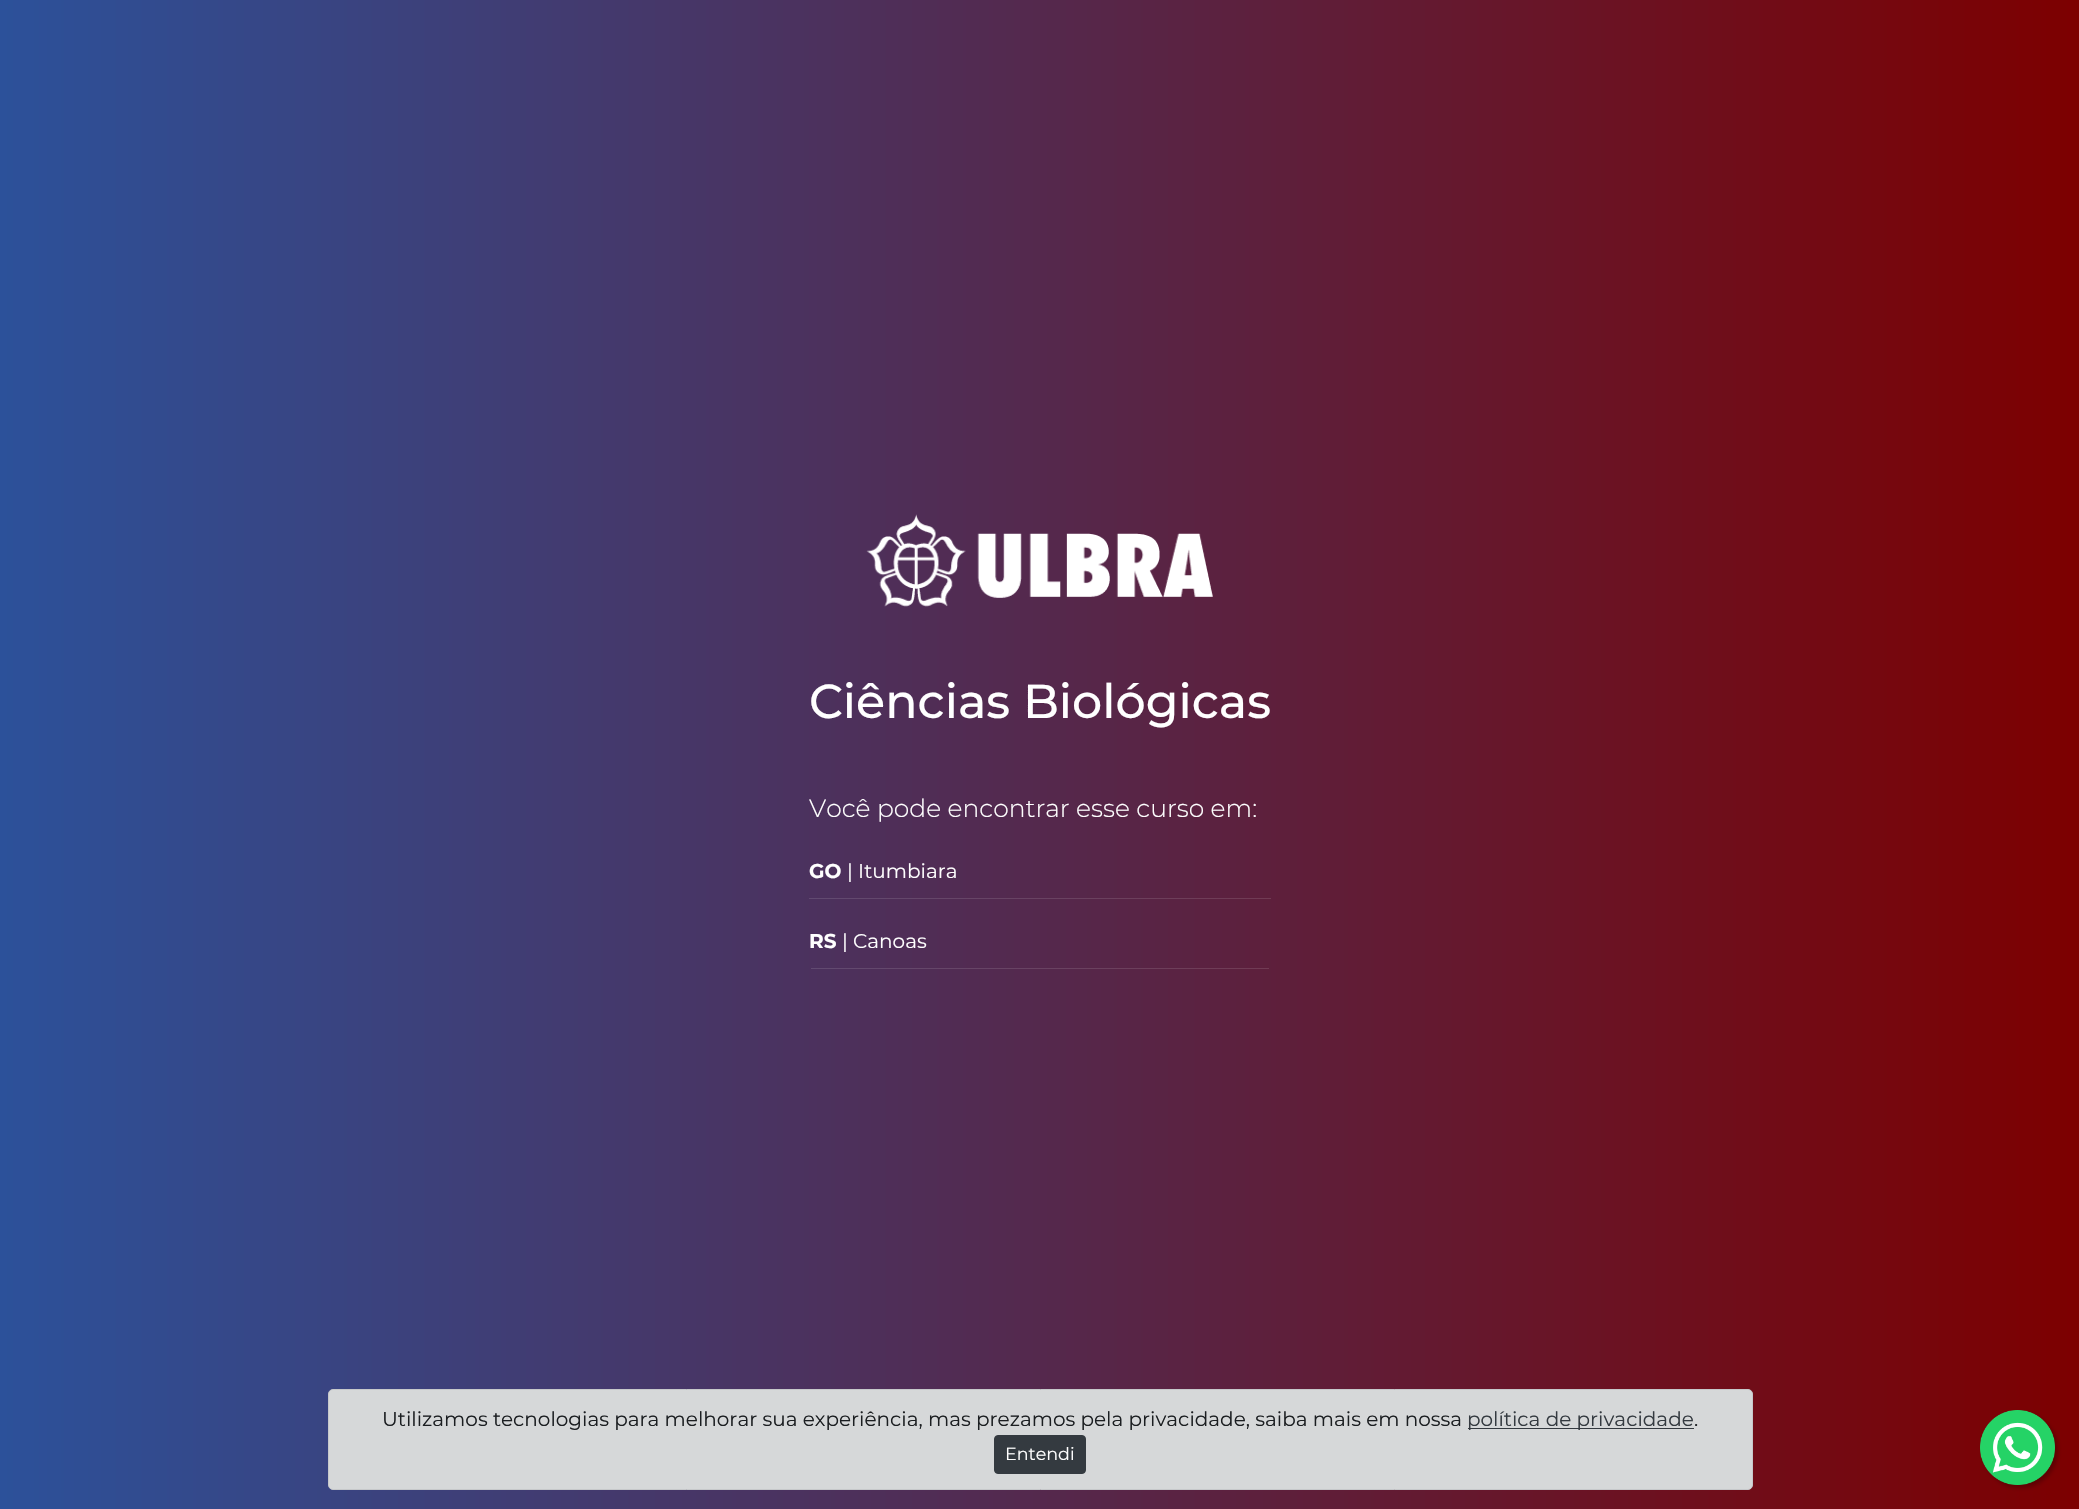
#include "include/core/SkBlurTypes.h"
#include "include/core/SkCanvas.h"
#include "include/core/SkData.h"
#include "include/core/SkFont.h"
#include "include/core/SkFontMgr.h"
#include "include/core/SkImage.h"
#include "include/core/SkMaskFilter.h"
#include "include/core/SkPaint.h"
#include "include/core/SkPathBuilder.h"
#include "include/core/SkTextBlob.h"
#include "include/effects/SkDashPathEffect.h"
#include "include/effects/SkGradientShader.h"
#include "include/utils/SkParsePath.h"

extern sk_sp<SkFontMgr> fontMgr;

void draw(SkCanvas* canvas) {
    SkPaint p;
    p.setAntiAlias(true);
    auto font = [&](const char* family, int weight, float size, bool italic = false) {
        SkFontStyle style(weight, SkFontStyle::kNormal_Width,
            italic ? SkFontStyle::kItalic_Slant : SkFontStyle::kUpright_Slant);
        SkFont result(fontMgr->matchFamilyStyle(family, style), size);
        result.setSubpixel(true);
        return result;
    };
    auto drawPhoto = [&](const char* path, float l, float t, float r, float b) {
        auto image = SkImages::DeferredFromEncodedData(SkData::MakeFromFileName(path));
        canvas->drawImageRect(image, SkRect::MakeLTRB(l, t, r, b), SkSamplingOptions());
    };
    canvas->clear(0xFFFFFFFF);
    {
        const SkColor colors[] = {0xFF2C519A, 0xFF7D0000};
        const float stops[] = {0, 1};
        const SkPoint ends[] = {{0, 755}, {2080, 755}};
        p.setShader(SkGradientShader::MakeLinear(ends, colors, stops, 2, SkTileMode::kClamp));
        p.setAlpha(255);
    }
    canvas->drawRect(SkRect::MakeLTRB(0, 0, 2079, 1509), p);
    {
        const SkColor colors[] = {0xFF4566A6, 0xFF8D1F1F};
        const float stops[] = {0, 1};
        const SkPoint ends[] = {{0, 755}, {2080, 755}};
        p.setShader(SkGradientShader::MakeLinear(ends, colors, stops, 2, SkTileMode::kClamp));
        p.setAlpha(255);
    }
    canvas->drawRect(SkRect::MakeLTRB(811, 968, 1269, 969), p);
    canvas->drawRect(SkRect::MakeLTRB(809, 898, 1271, 899), p);
    drawPhoto("media/1.png", 866, 514, 1213, 607);
    auto font1 = font("Montserrat", 500, 47.5f);
    p.setShader(nullptr);
    p.setColor(0xFFFFFFFF);
    canvas->drawString("Ciências Biológicas", 809, 718, font1, p);
    auto font2 = font("Montserrat", 300, 25);
    canvas->drawString("Você pode encontrar esse curso em:", 809, 817, font2, p);
    auto font3 = font("Montserrat", 700, 20);
    canvas->drawString("GO", 809, 878, font3, p);
    auto font4 = font("Montserrat", 400, 20);
    canvas->drawString("| Itumbiara", 847, 878, font4, p);
    canvas->drawString("RS", 809, 948, font3, p);
    canvas->drawString("| Canoas", 842, 948, font4, p);
    p.setColor(0xFFD6D8D9);
    canvas->drawRoundRect(SkRect::MakeLTRB(328.5f, 1389.5f, 1752.5f, 1489.5f), 4.5f, 4.5f, p);
    p.setStyle(SkPaint::kStroke_Style);
    p.setStrokeWidth(1);
    p.setColor(0xFFC6C8CA);
    canvas->drawRoundRect(SkRect::MakeLTRB(328.5f, 1389.5f, 1752.5f, 1489.5f), 4.5f, 4.5f, p);
    p.setStyle(SkPaint::kFill_Style);
    p.setColor(0xFF1B1E21);
    canvas->drawString("Utilizamos tecnologias para melhorar sua experiência, mas prezamos pela privacidade, saiba mais em nossa", 382, 1426, font4, p);
    p.setColor(0xFF343A40);
    canvas->drawRect(SkRect::MakeLTRB(1468, 1428, 1694, 1429), p);
    canvas->drawString("política de privacidade", 1467, 1426, font4, p);
    p.setColor(0xFF1B1E21);
    canvas->drawString(".", 1694, 1426, font4, p);
    p.setColor(0xFF343A40);
    canvas->drawRoundRect(SkRect::MakeLTRB(994.5f, 1435.5f, 1085.5f, 1473.5f), 3.5f, 3.5f, p);
    p.setStyle(SkPaint::kStroke_Style);
    canvas->drawRoundRect(SkRect::MakeLTRB(994.5f, 1435.5f, 1085.5f, 1473.5f), 3.5f, 3.5f, p);
    auto font5 = font("Montserrat", 400, 17.5f);
    p.setStyle(SkPaint::kFill_Style);
    p.setColor(0xFFFFFFFF);
    canvas->drawString("Entendi", 1005, 1460, font5, p);
    p.setColor(0x40000000);
    p.setMaskFilter(SkMaskFilter::MakeBlur(kNormal_SkBlurStyle, 2));
    canvas->drawRoundRect(SkRect::MakeLTRB(1983, 1413, 2058, 1488), 37.5f, 37.5f, p);
    p.setMaskFilter(nullptr);
    drawPhoto("media/2.png", 1980, 1410, 2055, 1485);
}
